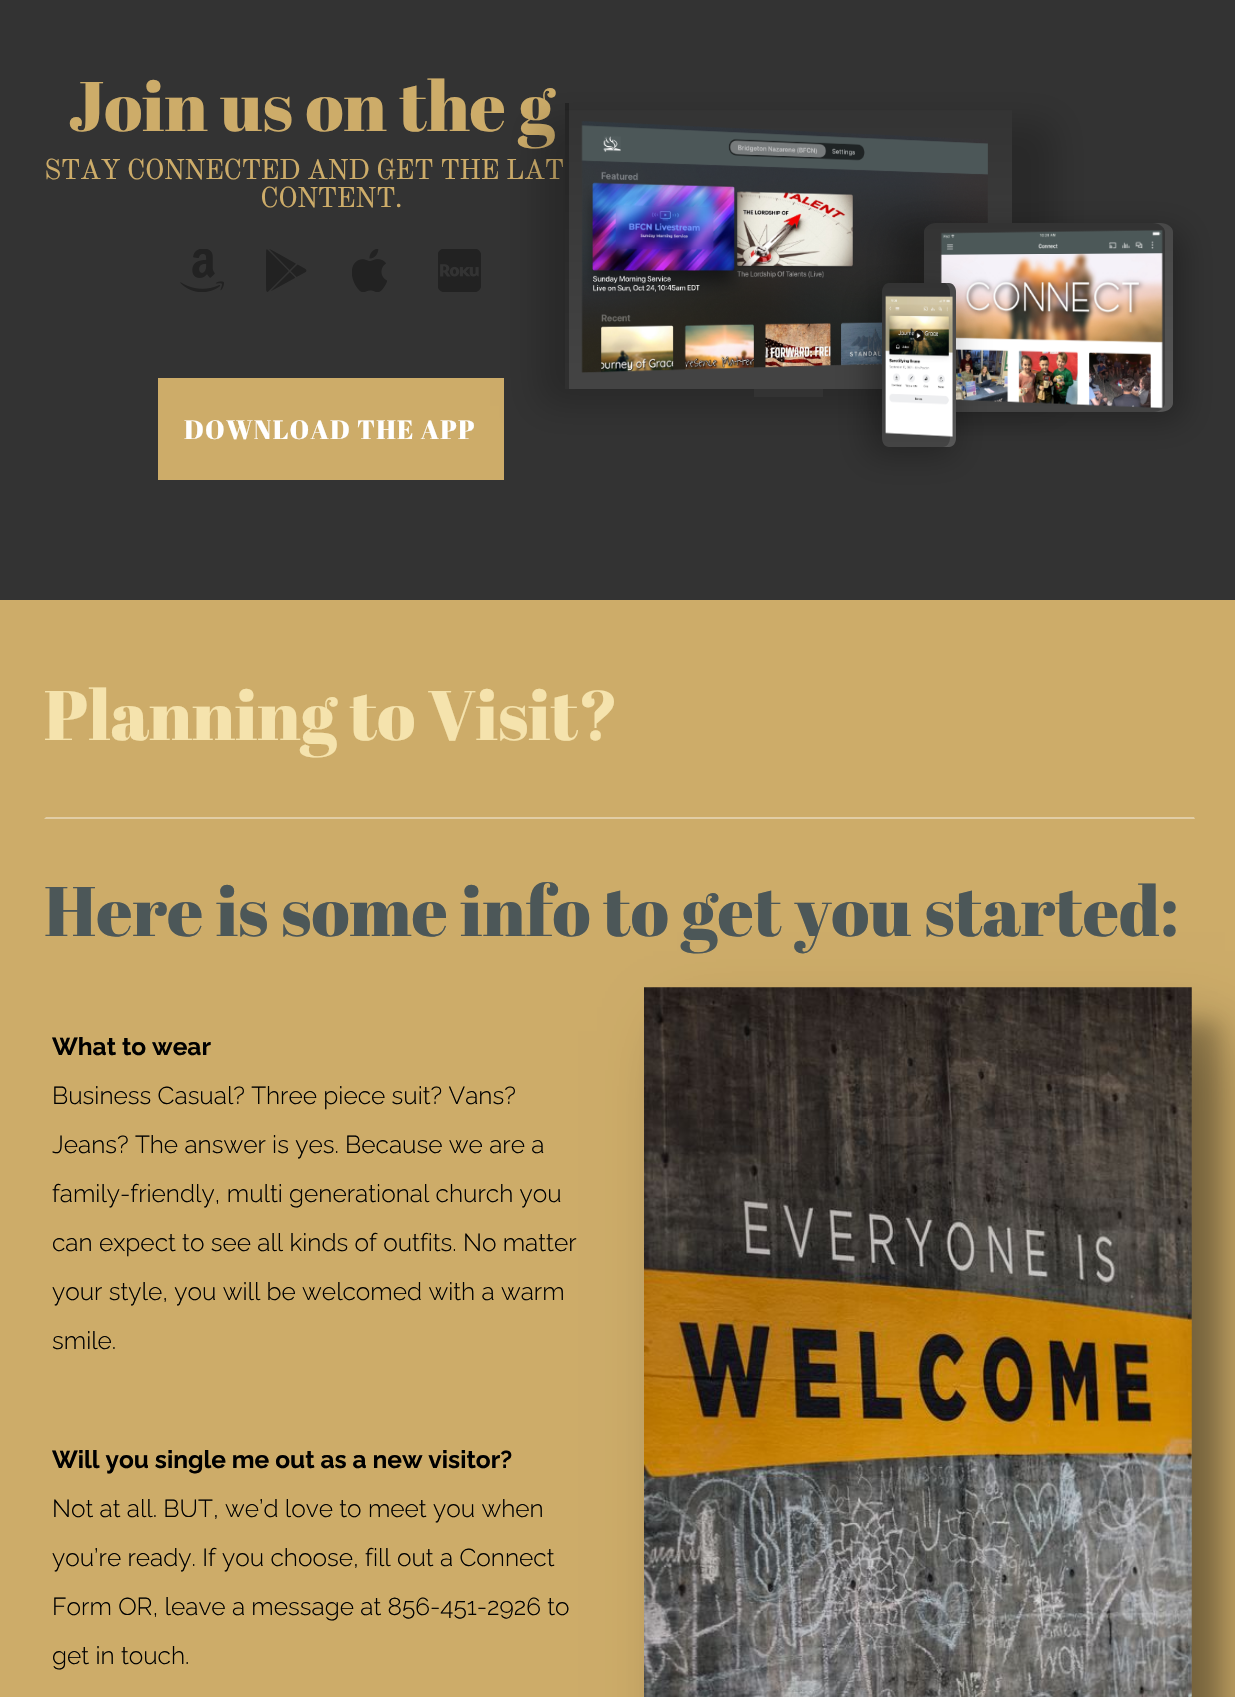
#include "include/core/SkBlurTypes.h"
#include "include/core/SkCanvas.h"
#include "include/core/SkData.h"
#include "include/core/SkFont.h"
#include "include/core/SkFontMgr.h"
#include "include/core/SkImage.h"
#include "include/core/SkMaskFilter.h"
#include "include/core/SkPaint.h"
#include "include/core/SkPathBuilder.h"
#include "include/core/SkTextBlob.h"
#include "include/effects/SkDashPathEffect.h"
#include "include/effects/SkGradientShader.h"
#include "include/utils/SkParsePath.h"

extern sk_sp<SkFontMgr> fontMgr;

void draw(SkCanvas* canvas) {
    SkPaint p;
    p.setAntiAlias(true);
    auto font = [&](const char* family, int weight, float size, bool italic = false) {
        SkFontStyle style(weight, SkFontStyle::kNormal_Width,
            italic ? SkFontStyle::kItalic_Slant : SkFontStyle::kUpright_Slant);
        SkFont result(fontMgr->matchFamilyStyle(family, style), size);
        result.setSubpixel(true);
        return result;
    };
    auto drawTracked = [&](const char* s, float x, float y, const SkFont& font, const SkPaint& ink, float letter, float word) {
        std::vector<SkGlyphID> glyphs(font.countText(s, strlen(s), SkTextEncoding::kUTF8));
        std::vector<float> xs(glyphs.size());
        font.textToGlyphs(s, strlen(s), SkTextEncoding::kUTF8, glyphs);
        font.getXPos(glyphs, xs, x);
        float extra = 0;
        for (size_t i = 0; i < glyphs.size(); i++) {
            xs[i] += extra;
            extra += letter + word * (glyphs[i] == font.unicharToGlyph(' '));
        }
        canvas->drawTextBlob(SkTextBlob::MakeFromPosHGlyphs(glyphs, xs, y, font), 0, 0, ink);
    };
    auto drawPhoto = [&](const char* path, float l, float t, float r, float b) {
        auto image = SkImages::DeferredFromEncodedData(SkData::MakeFromFileName(path));
        canvas->drawImageRect(image, SkRect::MakeLTRB(l, t, r, b), SkSamplingOptions());
    };
    canvas->clear(0xFF333333);
    auto font1 = font("Abril Fatface", 400, 70);
    p.setColor(0xFFCDAC69);
    canvas->drawString("Join us on the g", 68, 131, font1, p);
    auto font2 = font("Old Standard TT", 400, 28);
    drawTracked("STAY CONNECTED AND GET THE LAT", 44, 179, font2, p, -0.85f, 0);
    drawTracked("CONTENT.", 260, 207, font2, p, -0.85f, 0);
    drawPhoto("media/1.png", 180, 249, 224, 292);
    drawPhoto("media/2.png", 266, 249, 307, 292);
    drawPhoto("media/3.png", 352, 249, 387, 292);
    drawPhoto("media/4.png", 438, 249, 481, 292);
    canvas->drawRect(SkRect::MakeLTRB(158, 378, 504, 480), p);
    auto font3 = font("Abril Fatface", 400, 26.25f);
    p.setColor(0xFFFFFFFF);
    drawTracked("DOWNLOAD THE APP", 184, 439, font3, p, 1.25f, 0);
    p.setColor(0x33000000);
    p.setMaskFilter(SkMaskFilter::MakeBlur(kNormal_SkBlurStyle, 16.5f));
    canvas->drawRect(SkRect::MakeLTRB(539, 121, 1055, 406), p);
    p.setMaskFilter(nullptr);
    {
        const SkColor colors[] = {0xFF333333, 0xFF444444};
        const float stops[] = {0, 1};
        const SkPoint ends[] = {{789, 103}, {789, 388}};
        p.setShader(SkGradientShader::MakeLinear(ends, colors, stops, 2, SkTileMode::kClamp));
        p.setAlpha(255);
    }
    canvas->drawRect(SkRect::MakeLTRB(565, 110, 1012, 389), p);
    p.setShader(nullptr);
    p.setColor(0x4D000000);
    canvas->drawRect(SkRect::MakeLTRB(565, 103, 569, 389), p);
    drawPhoto("media/5.png", 581, 121, 988, 373);
    p.setColor(0xFF333333);
    canvas->drawRect(SkRect::MakeLTRB(754, 389, 823, 397), p);
    p.setColor(0x4D000000);
    p.setMaskFilter(SkMaskFilter::MakeBlur(kNormal_SkBlurStyle, 16.5f));
    canvas->drawRoundRect(SkRect::MakeLTRB(896, 231, 1183, 420), 9, 9, p);
    p.setMaskFilter(nullptr);
    {
        const SkColor colors[] = {0xFF333333, 0xFF444444};
        const float stops[] = {0, 1};
        const SkPoint ends[] = {{1048, 223}, {1048, 412}};
        p.setShader(SkGradientShader::MakeLinear(ends, colors, stops, 2, SkTileMode::kClamp));
        p.setAlpha(255);
    }
    canvas->drawPath(SkPathBuilder().moveTo(936, 223).lineTo(1160, 223).cubicTo(1167, 223, 1173, 227, 1173, 232).lineTo(1173, 403).cubicTo(1173, 408, 1167, 412, 1160, 412).lineTo(936, 412).cubicTo(930, 412, 924, 408, 924, 403).lineTo(924, 232).cubicTo(924, 227, 930, 223, 936, 223).close().detach(), p);
    p.setShader(nullptr);
    p.setColor(0x1AFFFFFF);
    canvas->drawPath(SkPathBuilder().moveTo(936, 223).lineTo(933, 223).lineTo(1153, 223).cubicTo(1159, 223, 1165, 227, 1165, 232).lineTo(1165, 403).cubicTo(1165, 408, 1159, 412, 1154, 412).lineTo(1160, 412).cubicTo(1167, 412, 1173, 408, 1173, 403).lineTo(1173, 232).cubicTo(1173, 227, 1167, 223, 1160, 223).close().detach(), p);
    drawPhoto("media/6.png", 940, 230, 1163, 409);
    p.setColor(0x4D000000);
    p.setMaskFilter(SkMaskFilter::MakeBlur(kNormal_SkBlurStyle, 16.5f));
    canvas->drawRoundRect(SkRect::MakeLTRB(868, 292, 954, 455), 4, 4, p);
    p.setMaskFilter(nullptr);
    {
        const SkColor colors[] = {0xFF333333, 0xFF444444};
        const float stops[] = {0, 1};
        const SkPoint ends[] = {{919, 283}, {919, 447}};
        p.setShader(SkGradientShader::MakeLinear(ends, colors, stops, 2, SkTileMode::kClamp));
        p.setAlpha(255);
    }
    canvas->drawPath(SkPathBuilder().moveTo(889, 283).lineTo(949, 283).cubicTo(953, 283, 956, 287, 956, 292).lineTo(956, 438).cubicTo(956, 443, 953, 447, 949, 447).lineTo(889, 447).cubicTo(885, 447, 882, 443, 882, 438).lineTo(882, 292).cubicTo(882, 287, 885, 283, 889, 283).close().detach(), p);
    p.setShader(nullptr);
    p.setColor(0x1AFFFFFF);
    canvas->drawPath(SkPathBuilder().moveTo(943, 447).lineTo(949, 447).cubicTo(953, 447, 956, 443, 956, 438).lineTo(956, 292).cubicTo(956, 287, 953, 283, 949, 283).lineTo(945, 283).cubicTo(948, 285, 950, 288, 950, 292).lineTo(950, 438).cubicTo(950, 443, 947, 447, 943, 447).close().detach(), p);
    drawPhoto("media/7.png", 885, 295, 953, 437);
    p.setColor(0xFFCDAC69);
    canvas->drawRect(SkRect::MakeLTRB(0, 600, 1235, 1697), p);
    p.setColor(0xFFF5E3AD);
    canvas->drawString("Planning to Visit?", 44, 740, font1, p);
    p.setColor(0xFFE1CDA5);
    canvas->drawPath(SkPathBuilder().moveTo(1195, 819).lineTo(44, 819).lineTo(46, 817).lineTo(1194, 817).close().detach(), p);
    p.setColor(0xFF4C5758);
    canvas->drawString("Here is some info to get you started:", 44, 936, font1, p);
    auto font4 = font("Raleway", 700, 24.5f);
    p.setColor(0xFF000000);
    canvas->drawString("What to wear", 52, 1055, font4, p);
    auto font5 = font("Raleway", 300, 24.5f);
    {
        const struct { const char* s; float x, y; } items[] = {
            {"Business Casual? Three piece suit? Vans?", 52, 1104},
            {"Jeans? The answer is yes. Because we are a", 52, 1153},
            {"family-friendly, multi generational church you", 52, 1202},
            {"can expect to see all kinds of outfits. No matter", 52, 1251},
            {"your style, you will be welcomed with a warm", 52, 1300},
            {"smile.", 52, 1349},
        };
        for (auto [s, x, y] : items) {
            canvas->drawString(s, x, y, font5, p);
        }
    }
    canvas->drawString("Will you single me out as a new visitor?", 52, 1468, font4, p);
    {
        const struct { const char* s; float x, y; } items[] = {
            {"Not at all. BUT, we’d love to meet you when", 52, 1517},
            {"you’re ready. If you choose, fill out a Connect", 52, 1566},
            {"Form OR, leave a message at 856-451-2926 to", 52, 1615},
            {"get in touch.", 52, 1664},
        };
        for (auto [s, x, y] : items) {
            canvas->drawString(s, x, y, font5, p);
        }
    }
    p.setColor(0x38000000);
    p.setMaskFilter(SkMaskFilter::MakeBlur(kNormal_SkBlurStyle, 10.5f));
    canvas->drawRect(SkRect::MakeLTRB(670, 1022, 1218, 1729), p);
    p.setMaskFilter(nullptr);
    p.setColor(0x4D000000);
    p.setMaskFilter(SkMaskFilter::MakeBlur(kNormal_SkBlurStyle, 33));
    canvas->drawRect(SkRect::MakeLTRB(677, 1031, 1225, 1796), p);
    p.setMaskFilter(nullptr);
    drawPhoto("media/8.png", 644, 987, 1192, 1697);
}
